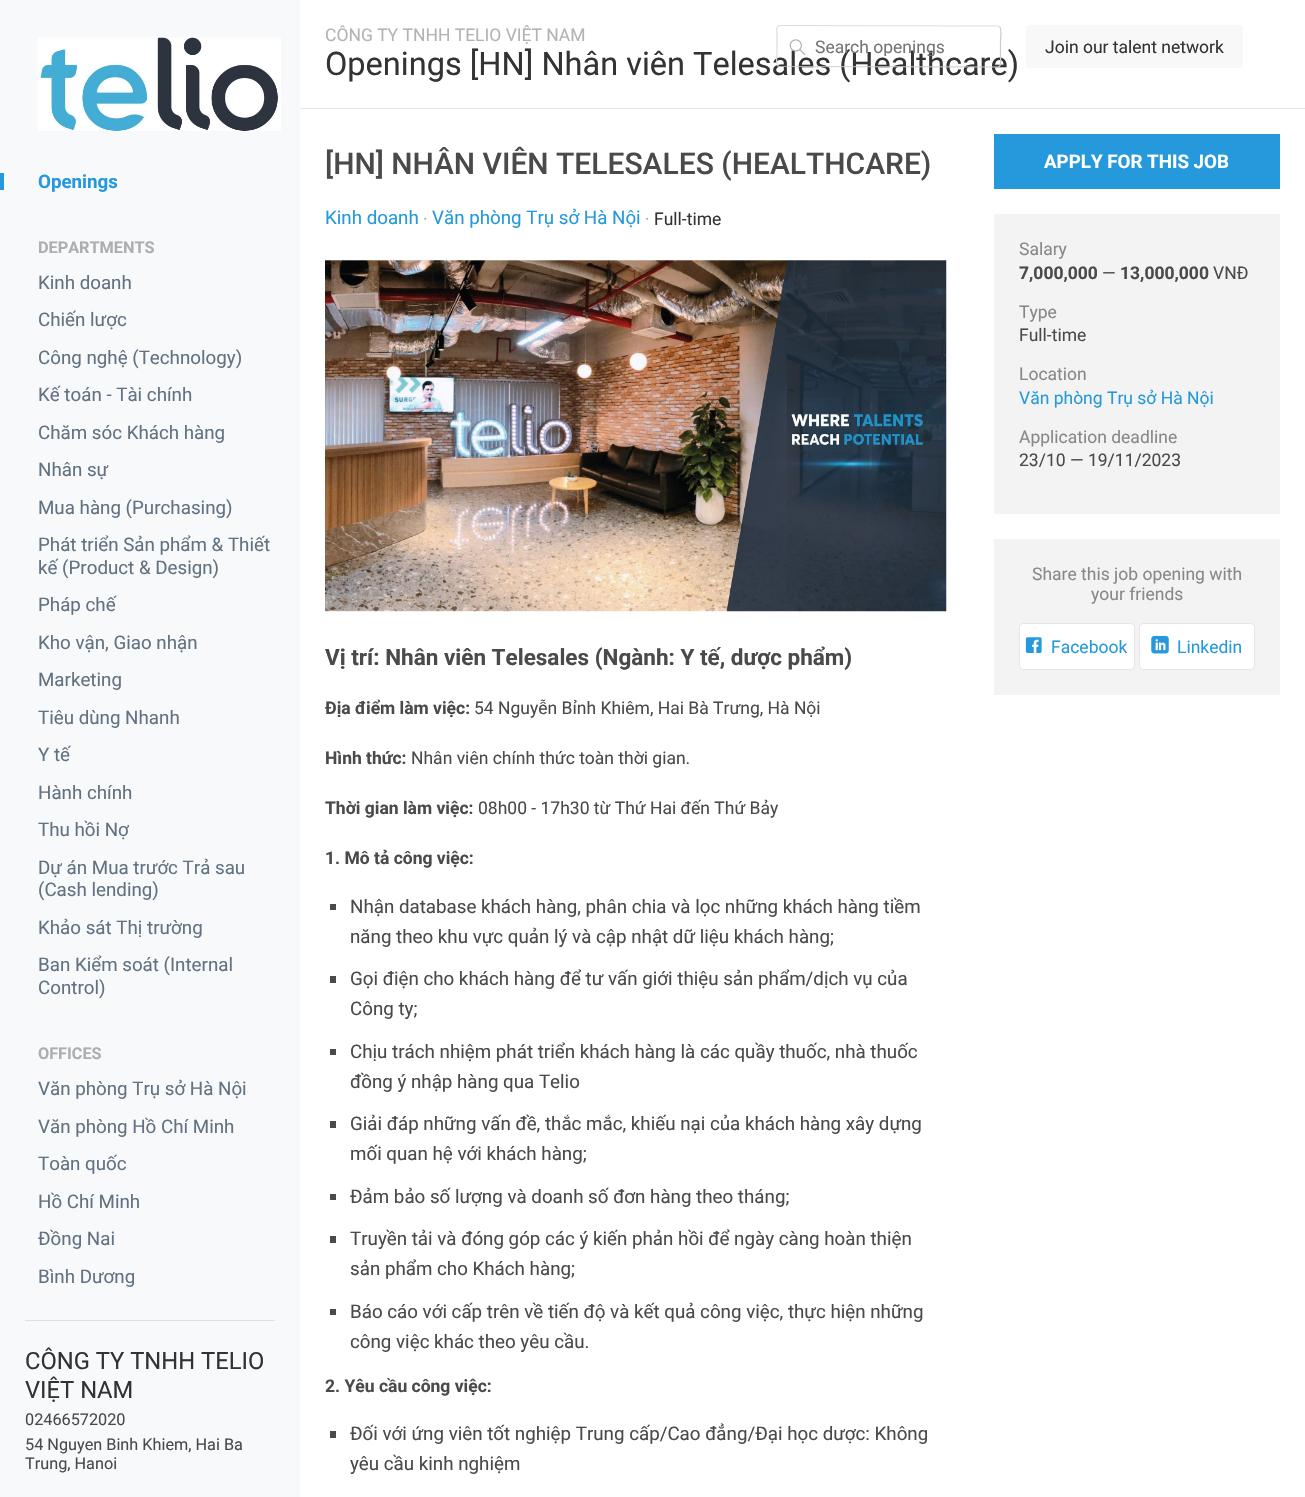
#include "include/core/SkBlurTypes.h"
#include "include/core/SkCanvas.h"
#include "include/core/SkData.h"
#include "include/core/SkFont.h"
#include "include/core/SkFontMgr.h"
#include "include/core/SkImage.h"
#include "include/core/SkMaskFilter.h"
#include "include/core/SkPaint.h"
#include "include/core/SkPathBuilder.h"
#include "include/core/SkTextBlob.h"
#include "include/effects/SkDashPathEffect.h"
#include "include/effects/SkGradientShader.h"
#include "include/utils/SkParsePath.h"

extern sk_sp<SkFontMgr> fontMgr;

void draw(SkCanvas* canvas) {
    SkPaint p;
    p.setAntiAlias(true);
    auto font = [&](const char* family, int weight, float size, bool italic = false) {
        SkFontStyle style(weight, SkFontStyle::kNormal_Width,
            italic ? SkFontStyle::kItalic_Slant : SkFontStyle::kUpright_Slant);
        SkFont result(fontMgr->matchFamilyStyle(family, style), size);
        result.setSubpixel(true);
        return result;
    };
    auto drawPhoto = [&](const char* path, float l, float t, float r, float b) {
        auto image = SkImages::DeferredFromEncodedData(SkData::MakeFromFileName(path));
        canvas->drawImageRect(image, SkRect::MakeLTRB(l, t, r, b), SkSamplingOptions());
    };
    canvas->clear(0xFFFFFFFF);
    p.setColor(0xFFF7F9FA);
    canvas->drawRect(SkRect::MakeLTRB(0, 0, 300, 1497), p);
    drawPhoto("media/1.png", 37, 37, 281, 131);
    p.setColor(0xFF2599DC);
    canvas->drawRect(SkRect::MakeLTRB(0, 173, 4, 190), p);
    auto font1 = font("Roboto", 700, 18.75f);
    canvas->drawString("Openings", 38, 188, font1, p);
    auto font2 = font("Roboto", 700, 16.25f);
    p.setColor(0xFFADAEAF);
    canvas->drawString("DEPARTMENTS", 38, 253, font2, p);
    auto font3 = font("Roboto", 400, 18.75f);
    p.setColor(0xFF637282);
    {
        const struct { const char* s; float x, y; } items[] = {
            {"Kinh doanh", 38, 289},
            {"Chiến lược", 38, 326},
            {"Công nghệ (Technology)", 38, 364},
            {"Kế toán - Tài chính", 38, 401},
            {"Chăm sóc Khách hàng", 38, 439},
            {"Nhân sự", 38, 476},
            {"Mua hàng (Purchasing)", 38, 514},
            {"Phát triển Sản phẩm & Thiết", 38, 551},
            {"kế (Product & Design)", 38, 574},
            {"Pháp chế", 38, 611},
            {"Kho vận, Giao nhận", 38, 649},
            {"Marketing", 38, 686},
            {"Tiêu dùng Nhanh", 38, 724},
            {"Y tế", 38, 761},
            {"Hành chính", 38, 799},
            {"Thu hồi Nợ", 38, 836},
            {"Dự án Mua trước Trả sau", 38, 874},
            {"(Cash lending)", 38, 896},
            {"Khảo sát Thị trường", 38, 934},
            {"Ban Kiểm soát (Internal", 38, 971},
            {"Control)", 38, 994},
        };
        for (auto [s, x, y] : items) {
            canvas->drawString(s, x, y, font3, p);
        }
    }
    p.setColor(0xFFADAEAF);
    canvas->drawString("OFFICES", 38, 1059, font2, p);
    p.setColor(0xFF637282);
    {
        const struct { const char* s; float x, y; } items[] = {
            {"Văn phòng Trụ sở Hà Nội", 38, 1095},
            {"Văn phòng Hồ Chí Minh", 38, 1133},
            {"Toàn quốc", 38, 1170},
            {"Hồ Chí Minh", 38, 1208},
            {"Đồng Nai", 38, 1245},
            {"Bình Dương", 38, 1283},
        };
        for (auto [s, x, y] : items) {
            canvas->drawString(s, x, y, font3, p);
        }
    }
    p.setColor(0xFFDEE0E1);
    canvas->drawRect(SkRect::MakeLTRB(25, 1320, 275, 1321), p);
    auto font4 = font("Roboto", 400, 23.75f);
    p.setColor(0xFF333333);
    canvas->drawString("CÔNG TY TNHH TELIO", 25, 1369, font4, p);
    canvas->drawString("VIỆT NAM", 25, 1398, font4, p);
    auto font5 = font("Roboto", 400, 16.25f);
    p.setColor(0xFF4A4A4A);
    {
        const struct { const char* s; float x, y; } items[] = {
            {"02466572020", 25, 1425},
            {"54 Nguyen Binh Khiem, Hai Ba", 25, 1450},
            {"Trung, Hanoi", 25, 1469},
        };
        for (auto [s, x, y] : items) {
            canvas->drawString(s, x, y, font5, p);
        }
    }
    p.setColor(0xFFE6E6E6);
    canvas->drawRect(SkRect::MakeLTRB(300, 108, 1305, 109), p);
    auto font6 = font("Roboto", 400, 17.5f);
    p.setColor(0xFFB3B3B3);
    canvas->drawString("CÔNG TY TNHH TELIO VIỆT NAM", 325, 41, font6, p);
    auto font7 = font("Roboto", 400, 32.5f);
    p.setColor(0xFF333333);
    canvas->drawString("Openings [HN] Nhân viên Telesales (Healthcare)", 325, 75, font7, p);
    p.setStyle(SkPaint::kStroke_Style);
    p.setStrokeWidth(1.2f);
    p.setColor(0xFFCCCCCC);
    canvas->drawPath(SkPathBuilder().moveTo(999.5f, 26.5f).cubicTo(1002, 29, 1000.5f, 38, 1000.5f, 40.5f).lineTo(1000.5f, 58).cubicTo(1000.5f, 60, 1002, 67, 997.5f, 67).lineTo(779, 66.5f).lineTo(778, 66).detach(), p);
    p.setColor(0xFFDDDDDD);
    canvas->drawPath(SkPathBuilder().moveTo(778, 66).cubicTo(775.5f, 63.5f, 777, 54.5f, 777, 52).lineTo(777, 34.5f).cubicTo(777, 32.5f, 775.5f, 25.5f, 780, 25.5f).lineTo(998.5f, 26).lineTo(999.5f, 26.5f).detach(), p);
    drawPhoto("media/2.png", 789, 39, 806, 55);
    canvas->save();
    canvas->clipRect(SkRect::MakeLTRB(815, 36, 988, 56));
    p.setStyle(SkPaint::kFill_Style);
    p.setColor(0xFF757575);
    canvas->drawString("Search openings", 815, 53, font6, p);
    canvas->restore();
    p.setColor(0xFFF8F8F8);
    canvas->drawRoundRect(SkRect::MakeLTRB(1026, 25, 1243, 68), 4, 4, p);
    p.setColor(0xFF333333);
    canvas->drawString("Join our talent network", 1045, 53, font6, p);
    auto font8 = font("Roboto", 500, 30);
    p.setColor(0xFF4A4A4A);
    canvas->drawString("[HN] NHÂN VIÊN TELESALES (HEALTHCARE)", 325, 174, font8, p);
    p.setColor(0xFF2599DC);
    canvas->drawString("Kinh doanh", 325, 224, font3, p);
    p.setColor(0xFFADAEAF);
    canvas->drawString("·", 423, 225, font6, p);
    p.setColor(0xFF2599DC);
    canvas->drawString("Văn phòng Trụ sở Hà Nội", 432, 224, font3, p);
    p.setColor(0xFFADAEAF);
    canvas->drawString("·", 645, 225, font6, p);
    p.setColor(0xFF333333);
    canvas->drawString("Full-time", 654, 225, font6, p);
    p.setColor(0xFF2599DC);
    canvas->drawRect(SkRect::MakeLTRB(994, 134, 1280, 189), p);
    p.setColor(0xFFFFFFFF);
    canvas->drawString("APPLY FOR THIS JOB", 1044, 168, font1, p);
    p.setColor(0xFFF3F3F3);
    canvas->drawRect(SkRect::MakeLTRB(994, 214, 1280, 514), p);
    p.setColor(0xFF888888);
    canvas->drawString("Salary", 1019, 255, font6, p);
    auto font9 = font("Roboto", 700, 17.5f);
    p.setColor(0xFF4A4A4A);
    canvas->drawString("7,000,000", 1019, 279, font9, p);
    canvas->drawString("—", 1102, 279, font6, p);
    canvas->drawString("13,000,000", 1120, 279, font9, p);
    canvas->drawString("VNĐ", 1213, 279, font6, p);
    p.setColor(0xFF888888);
    canvas->drawString("Type", 1019, 318, font6, p);
    p.setColor(0xFF4A4A4A);
    canvas->drawString("Full-time", 1019, 341, font6, p);
    p.setColor(0xFF888888);
    canvas->drawString("Location", 1019, 380, font6, p);
    p.setColor(0xFF2599DC);
    canvas->drawString("Văn phòng Trụ sở Hà Nội", 1019, 404, font6, p);
    p.setColor(0xFF888888);
    canvas->drawString("Application deadline", 1019, 443, font6, p);
    p.setColor(0xFF4A4A4A);
    canvas->drawString("23/10 — 19/11/2023", 1019, 466, font6, p);
    p.setColor(0xFFF3F3F3);
    canvas->drawRect(SkRect::MakeLTRB(994, 539, 1280, 695), p);
    p.setColor(0xFF888888);
    canvas->drawString("Share this job opening with", 1032, 580, font6, p);
    canvas->drawString("your friends", 1091, 600, font6, p);
    p.setColor(0xFFFFFFFF);
    canvas->drawRoundRect(SkRect::MakeLTRB(1019, 623, 1135, 670), 4, 4, p);
    p.setStyle(SkPaint::kStroke_Style);
    p.setStrokeWidth(1);
    p.setColor(0x1A000000);
    canvas->drawRoundRect(SkRect::MakeLTRB(1019.5f, 623.5f, 1134.5f, 669.5f), 3.5f, 3.5f, p);
    drawPhoto("media/3.png", 1025, 637, 1042, 653);
    p.setStyle(SkPaint::kFill_Style);
    p.setColor(0xFF2599DC);
    canvas->drawString("Facebook", 1051, 653, font6, p);
    p.setColor(0xFFFFFFFF);
    canvas->drawRoundRect(SkRect::MakeLTRB(1139, 623, 1255, 670), 4, 4, p);
    p.setStyle(SkPaint::kStroke_Style);
    p.setColor(0x1A000000);
    canvas->drawRoundRect(SkRect::MakeLTRB(1139.5f, 623.5f, 1254.5f, 669.5f), 3.5f, 3.5f, p);
    drawPhoto("media/4.png", 1151, 635, 1169, 654);
    p.setStyle(SkPaint::kFill_Style);
    p.setColor(0xFF2599DC);
    canvas->drawString("Linkedin", 1177, 653, font6, p);
    drawPhoto("media/5.png", 325, 260, 947, 612);
    auto font10 = font("Roboto", 700, 22.5f);
    p.setColor(0xFF4A4A4A);
    canvas->drawString("Vị trí: Nhân viên Telesales (Ngành: Y tế, dược phẩm)", 325, 665, font10, p);
    canvas->drawString("Địa điểm làm việc:", 325, 714, font9, p);
    canvas->drawString("54 Nguyễn Bỉnh Khiêm, Hai Bà Trưng, Hà Nội", 474, 714, font6, p);
    canvas->drawString("Hình thức:", 325, 764, font9, p);
    canvas->drawString("Nhân viên chính thức toàn thời gian.", 411, 764, font6, p);
    canvas->drawString("Thời gian làm việc:", 325, 814, font9, p);
    canvas->drawString("08h00 - 17h30 từ Thứ Hai đến Thứ Bảy", 478, 814, font6, p);
    canvas->drawString("1. Mô tả công việc:", 325, 864, font9, p);
    canvas->drawRect(SkRect::MakeLTRB(330, 904, 336, 910), p);
    canvas->drawString("Nhận database khách hàng, phân chia và lọc những khách hàng tiềm", 350, 913, font3, p);
    canvas->drawString("năng theo khu vực quản lý và cập nhật dữ liệu khách hàng;", 350, 943, font3, p);
    canvas->drawRect(SkRect::MakeLTRB(330, 976, 336, 983), p);
    canvas->drawString("Gọi điện cho khách hàng để tư vấn giới thiệu sản phẩm/dịch vụ của", 350, 985, font3, p);
    canvas->drawString("Công ty;", 350, 1015, font3, p);
    canvas->drawRect(SkRect::MakeLTRB(330, 1049, 336, 1055), p);
    canvas->drawString("Chịu trách nhiệm phát triển khách hàng là các quầy thuốc, nhà thuốc", 350, 1058, font3, p);
    canvas->drawString("đồng ý nhập hàng qua Telio", 350, 1088, font3, p);
    canvas->drawRect(SkRect::MakeLTRB(330, 1121, 336, 1128), p);
    canvas->drawString("Giải đáp những vấn đề, thắc mắc, khiếu nại của khách hàng xây dựng", 350, 1130, font3, p);
    canvas->drawString("mối quan hệ với khách hàng;", 350, 1160, font3, p);
    canvas->drawRect(SkRect::MakeLTRB(330, 1194, 336, 1200), p);
    canvas->drawString("Đảm bảo số lượng và doanh số đơn hàng theo tháng;", 350, 1203, font3, p);
    canvas->drawRect(SkRect::MakeLTRB(330, 1236, 336, 1243), p);
    canvas->drawString("Truyền tải và đóng góp các ý kiến phản hồi để ngày càng hoàn thiện", 350, 1245, font3, p);
    canvas->drawString("sản phẩm cho Khách hàng;", 350, 1275, font3, p);
    canvas->drawRect(SkRect::MakeLTRB(330, 1309, 336, 1315), p);
    canvas->drawString("Báo cáo với cấp trên về tiến độ và kết quả công việc, thực hiện những", 350, 1318, font3, p);
    canvas->drawString("công việc khác theo yêu cầu.", 350, 1348, font3, p);
    canvas->drawString("2. Yêu cầu công việc:", 325, 1392, font9, p);
    canvas->drawRect(SkRect::MakeLTRB(330, 1431, 336, 1438), p);
    canvas->drawString("Đối với ứng viên tốt nghiệp Trung cấp/Cao đẳng/Đại học dược: Không", 350, 1440, font3, p);
    canvas->drawString("yêu cầu kinh nghiệm", 350, 1470, font3, p);
}
